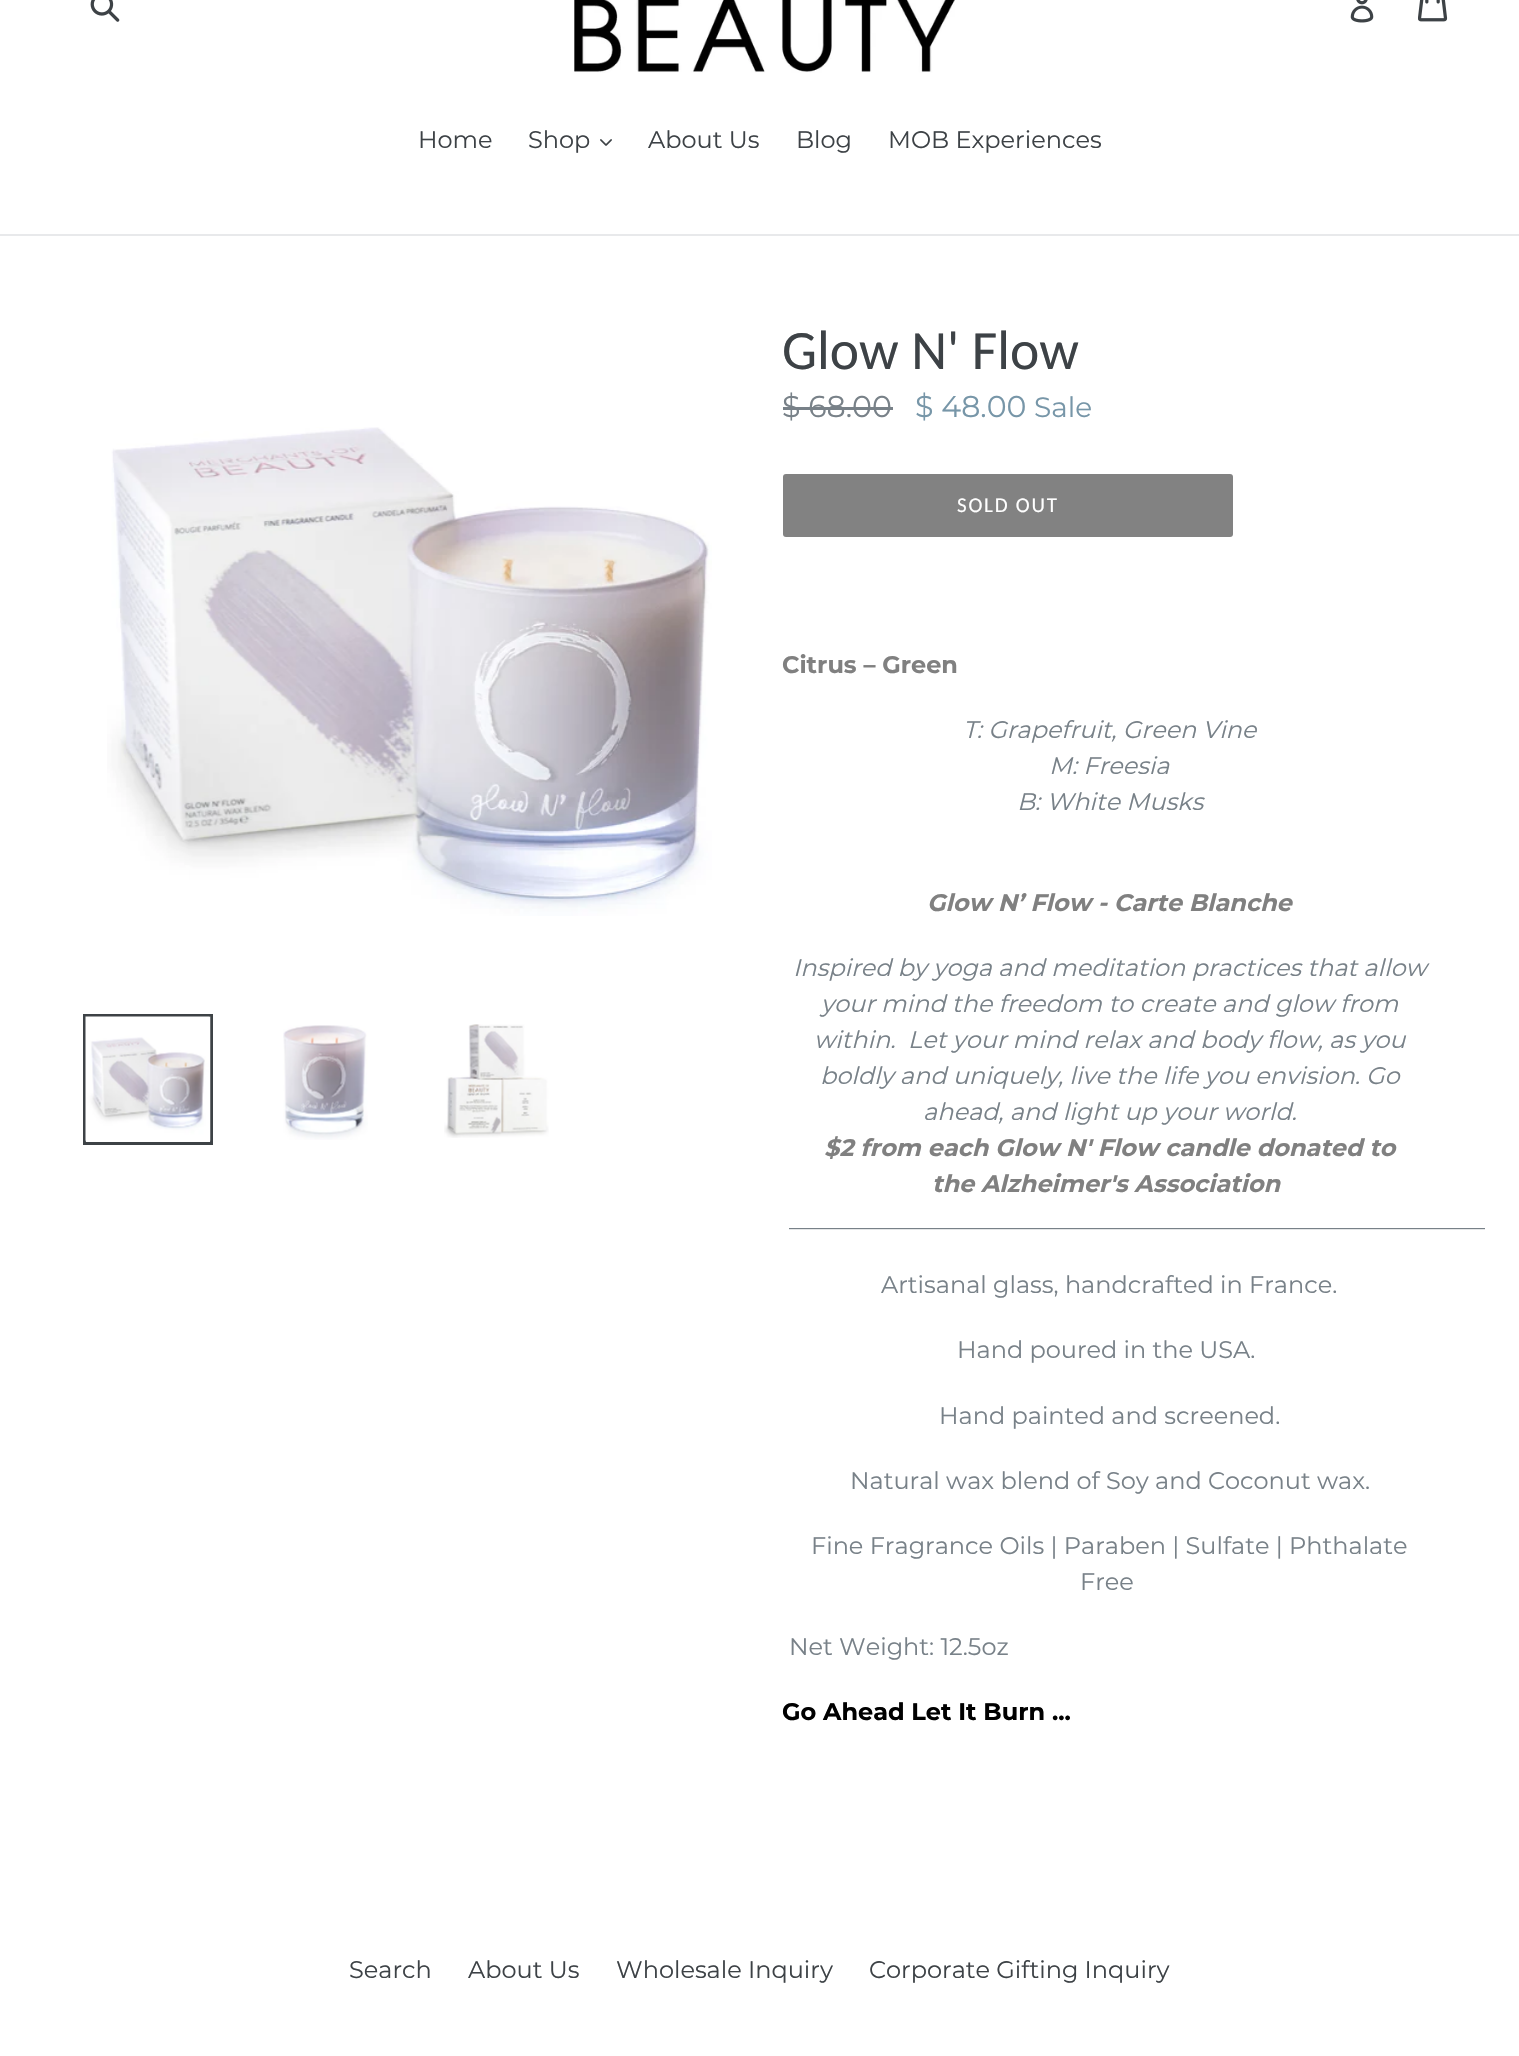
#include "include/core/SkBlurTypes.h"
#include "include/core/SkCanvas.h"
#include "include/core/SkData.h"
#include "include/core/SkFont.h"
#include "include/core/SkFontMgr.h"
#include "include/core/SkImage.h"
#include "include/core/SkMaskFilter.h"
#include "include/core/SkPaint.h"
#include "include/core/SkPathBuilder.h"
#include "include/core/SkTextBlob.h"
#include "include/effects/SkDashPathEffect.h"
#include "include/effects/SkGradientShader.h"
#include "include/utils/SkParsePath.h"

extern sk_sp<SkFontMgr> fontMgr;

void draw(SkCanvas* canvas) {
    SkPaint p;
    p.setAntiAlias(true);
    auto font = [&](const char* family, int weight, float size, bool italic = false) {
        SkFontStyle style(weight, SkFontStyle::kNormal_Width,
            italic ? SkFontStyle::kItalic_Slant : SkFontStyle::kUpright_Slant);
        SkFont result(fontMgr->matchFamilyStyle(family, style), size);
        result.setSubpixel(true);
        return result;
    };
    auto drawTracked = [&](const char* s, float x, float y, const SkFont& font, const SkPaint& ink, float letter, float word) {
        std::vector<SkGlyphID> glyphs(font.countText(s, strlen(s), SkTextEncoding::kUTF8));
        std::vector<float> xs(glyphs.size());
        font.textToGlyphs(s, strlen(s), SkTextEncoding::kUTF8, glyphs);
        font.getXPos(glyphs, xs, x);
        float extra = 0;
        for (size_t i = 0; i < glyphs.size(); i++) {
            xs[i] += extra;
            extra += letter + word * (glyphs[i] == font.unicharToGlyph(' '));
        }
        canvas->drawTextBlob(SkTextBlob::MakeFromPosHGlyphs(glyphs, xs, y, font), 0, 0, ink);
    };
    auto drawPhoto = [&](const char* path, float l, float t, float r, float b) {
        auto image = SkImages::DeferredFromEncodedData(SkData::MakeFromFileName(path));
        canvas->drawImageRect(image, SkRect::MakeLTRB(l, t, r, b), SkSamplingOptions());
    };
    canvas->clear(0xFFFFFFFF);
    drawPhoto("media/1.png", 90, 0, 120, 22);
    drawPhoto("media/2.png", 574, 0, 955, 73);
    drawPhoto("media/3.png", 1350, 0, 1374, 23);
    drawPhoto("media/4.png", 1418, 0, 1448, 22);
    p.setColor(0xFFE8E9EB);
    canvas->drawRect(SkRect::MakeLTRB(0, 234, 1519, 236), p);
    auto font1 = font("Montserrat", 400, 24);
    p.setColor(0xFF3D4246);
    canvas->drawString("Home", 418, 148, font1, p);
    canvas->drawString("Shop", 528, 148, font1, p);
    drawPhoto("media/5.png", 600, 139, 612, 146);
    {
        const struct { const char* s; float x, y; } items[] = {
            {"About Us", 648, 148},
            {"Blog", 796, 148},
            {"MOB Experiences", 888, 148},
        };
        for (auto [s, x, y] : items) {
            canvas->drawString(s, x, y, font1, p);
        }
    }
    drawPhoto("media/6.png", 107, 427, 712, 916);
    p.setStyle(SkPaint::kStroke_Style);
    p.setStrokeWidth(3);
    canvas->drawRect(SkRect::MakeLTRB(84.5f, 1015.5f, 211.5f, 1143.5f), p);
    drawPhoto("media/7.png", 85, 1016, 211, 1142);
    drawPhoto("media/8.png", 283, 1025, 368, 1140);
    drawPhoto("media/9.png", 444, 1024, 549, 1138);
    auto font2 = font("Carlito", 400, 55.5f);
    p.setStyle(SkPaint::kFill_Style);
    canvas->drawString("Glow N' Flow", 782, 369, font2, p);
    auto font3 = font("Montserrat", 400, 30);
    p.setColor(0xFF788188);
    canvas->drawString("$ 68.00", 782, 417, font3, p);
    canvas->drawRect(SkRect::MakeLTRB(783, 407, 893, 410), p);
    p.setColor(0xFF7796A8);
    canvas->drawString("$ 48.00", 915, 417, font3, p);
    auto font4 = font("Montserrat", 400, 28);
    canvas->drawString("Sale", 1034, 417, font4, p);
    p.setColor(0xFF828282);
    canvas->drawRoundRect(SkRect::MakeLTRB(783, 474, 1233, 537), 3, 3, p);
    auto font5 = font("Carlito", 400, 21);
    p.setColor(0xFFFFFFFF);
    drawTracked("SOLD OUT", 957, 512, font5, p, 1.75f, 0);
    auto font6 = font("Montserrat", 700, 24);
    p.setColor(0xFF808080);
    canvas->drawString("Citrus – Green", 782, 673, font6, p);
    auto font7 = font("Montserrat", 400, 24, true);
    p.setColor(0xFF788188);
    {
        const struct { const char* s; float x, y; } items[] = {
            {"T: Grapefruit, Green Vine", 963, 738},
            {"M: Freesia", 1049, 774},
            {"B: White Musks", 1017, 810},
        };
        for (auto [s, x, y] : items) {
            canvas->drawString(s, x, y, font7, p);
        }
    }
    auto font8 = font("Montserrat", 700, 24, true);
    p.setColor(0xFF808080);
    canvas->drawString("Glow N’ Flow - Carte Blanche", 927, 911, font8, p);
    p.setColor(0xFF788188);
    {
        const struct { const char* s; float x, y; } items[] = {
            {"Inspired by yoga and meditation practices that allow", 793, 976},
            {"your mind the freedom to create and glow from", 821, 1012},
            {"within.  Let your mind relax and body flow, as you", 814, 1048},
            {"boldly and uniquely, live the life you envision. Go", 820, 1084},
            {"ahead, and light up your world.", 923, 1120},
        };
        for (auto [s, x, y] : items) {
            canvas->drawString(s, x, y, font7, p);
        }
    }
    p.setColor(0xFF808080);
    canvas->drawString("$2 from each Glow N' Flow candle donated to", 824, 1156, font8, p);
    canvas->drawString("the Alzheimer's Association", 932, 1192, font8, p);
    p.setColor(0xFF788188);
    {
        const struct { const char* s; float x, y; } items[] = {
            {"__________________________________________________________", 789, 1228},
            {"Artisanal glass, handcrafted in France.", 881, 1293},
            {"Hand poured in the USA.", 957, 1358},
            {"Hand painted and screened.", 939, 1424},
            {"Natural wax blend of Soy and Coconut wax.", 850, 1489},
            {"Fine Fragrance Oils | Paraben | Sulfate | Phthalate", 811, 1554},
            {"Free", 1080, 1590},
            {"Net Weight: 12.5oz", 789, 1655},
        };
        for (auto [s, x, y] : items) {
            canvas->drawString(s, x, y, font1, p);
        }
    }
    p.setColor(0xFF000000);
    canvas->drawString("Go Ahead Let It Burn ...", 782, 1720, font6, p);
    p.setColor(0xFF3D4246);
    {
        const struct { const char* s; float x, y; } items[] = {
            {"Search", 349, 1978},
            {"About Us", 468, 1978},
            {"Wholesale Inquiry", 616, 1978},
            {"Corporate Gifting Inquiry", 869, 1978},
        };
        for (auto [s, x, y] : items) {
            canvas->drawString(s, x, y, font1, p);
        }
    }
}
